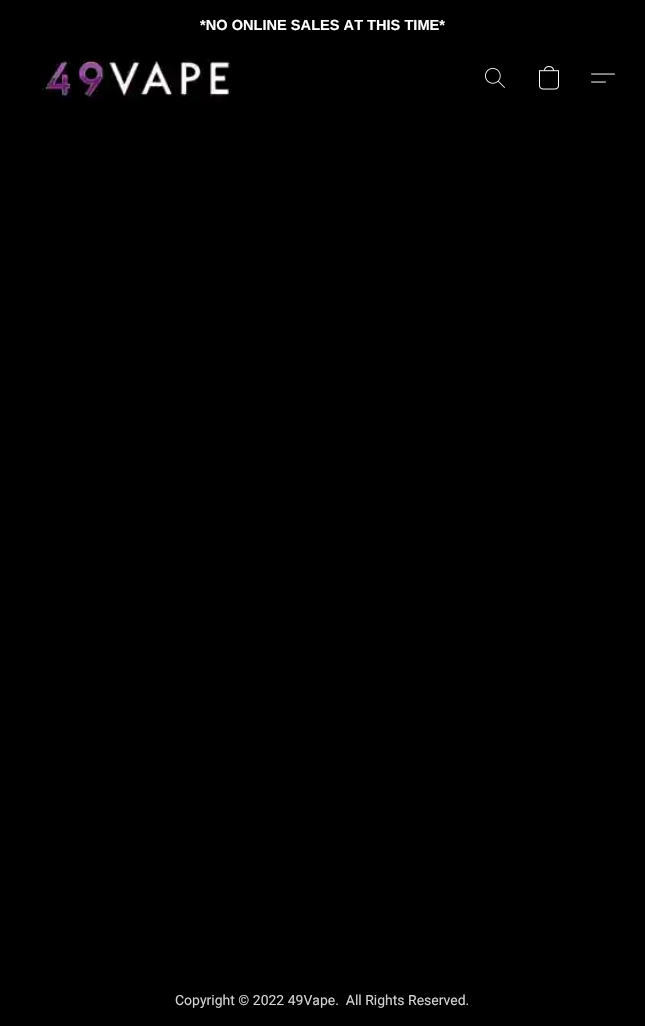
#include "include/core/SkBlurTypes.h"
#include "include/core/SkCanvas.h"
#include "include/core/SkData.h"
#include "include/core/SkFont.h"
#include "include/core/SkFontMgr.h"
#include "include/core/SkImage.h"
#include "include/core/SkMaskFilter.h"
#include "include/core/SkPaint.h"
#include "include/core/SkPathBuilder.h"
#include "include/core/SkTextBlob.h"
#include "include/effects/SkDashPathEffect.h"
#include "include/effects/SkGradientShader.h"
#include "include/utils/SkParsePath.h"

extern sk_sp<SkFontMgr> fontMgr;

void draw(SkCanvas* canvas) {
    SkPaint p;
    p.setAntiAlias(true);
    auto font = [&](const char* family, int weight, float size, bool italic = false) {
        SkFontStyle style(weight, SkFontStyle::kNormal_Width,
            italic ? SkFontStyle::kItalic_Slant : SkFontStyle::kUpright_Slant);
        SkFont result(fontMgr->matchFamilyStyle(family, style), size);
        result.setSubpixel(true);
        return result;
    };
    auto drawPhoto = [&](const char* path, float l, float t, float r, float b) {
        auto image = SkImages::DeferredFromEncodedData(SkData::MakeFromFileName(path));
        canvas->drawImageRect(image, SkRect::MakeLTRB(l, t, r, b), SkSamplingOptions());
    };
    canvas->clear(0xFF000000);
    auto font1 = font("Liberation Sans", 700, 14.6f);
    p.setColor(0xFFFFFFFF);
    canvas->drawString("*NO ONLINE SALES AT THIS TIME*", 200, 30, font1, p);
    drawPhoto("media/1.png", 41, 59, 231, 102);
    drawPhoto("media/2.png", 485, 68, 505, 88);
    drawPhoto("media/3.png", 539, 66, 559, 90);
    drawPhoto("media/4.png", 591, 73, 615, 83);
    auto font2 = font("Roboto", 400, 14);
    p.setColor(0xFFD4D4D4);
    canvas->drawString("Copyright © 2022 49Vape.  All Rights Reserved.", 175, 1005, font2, p);
}
